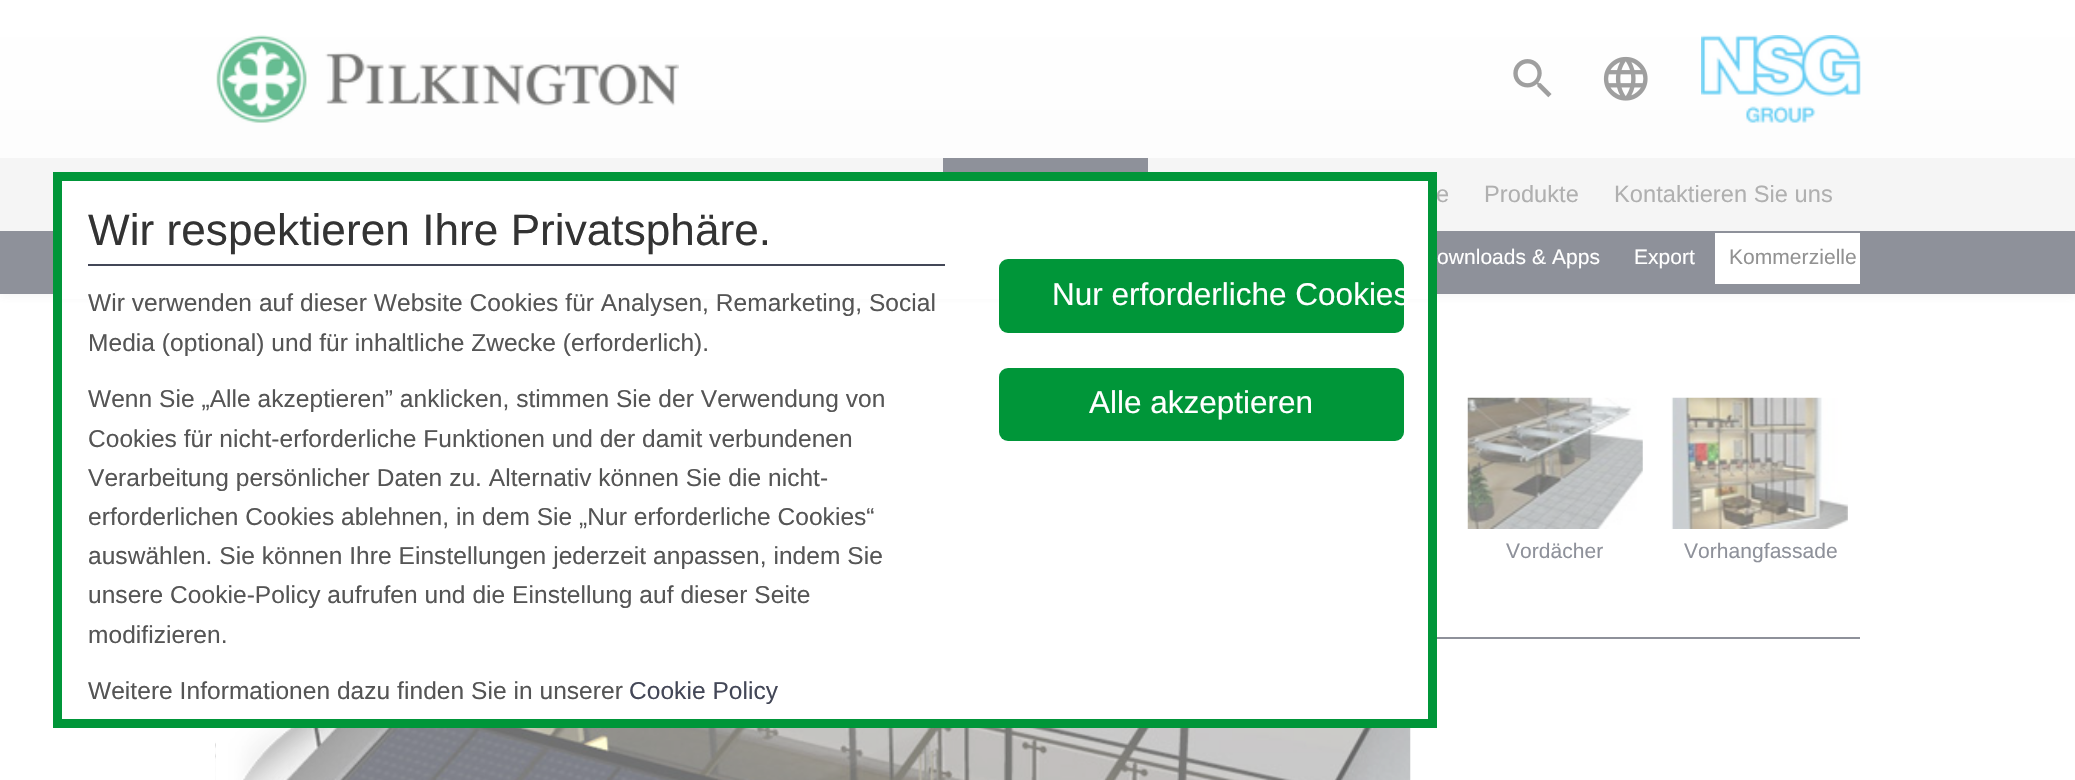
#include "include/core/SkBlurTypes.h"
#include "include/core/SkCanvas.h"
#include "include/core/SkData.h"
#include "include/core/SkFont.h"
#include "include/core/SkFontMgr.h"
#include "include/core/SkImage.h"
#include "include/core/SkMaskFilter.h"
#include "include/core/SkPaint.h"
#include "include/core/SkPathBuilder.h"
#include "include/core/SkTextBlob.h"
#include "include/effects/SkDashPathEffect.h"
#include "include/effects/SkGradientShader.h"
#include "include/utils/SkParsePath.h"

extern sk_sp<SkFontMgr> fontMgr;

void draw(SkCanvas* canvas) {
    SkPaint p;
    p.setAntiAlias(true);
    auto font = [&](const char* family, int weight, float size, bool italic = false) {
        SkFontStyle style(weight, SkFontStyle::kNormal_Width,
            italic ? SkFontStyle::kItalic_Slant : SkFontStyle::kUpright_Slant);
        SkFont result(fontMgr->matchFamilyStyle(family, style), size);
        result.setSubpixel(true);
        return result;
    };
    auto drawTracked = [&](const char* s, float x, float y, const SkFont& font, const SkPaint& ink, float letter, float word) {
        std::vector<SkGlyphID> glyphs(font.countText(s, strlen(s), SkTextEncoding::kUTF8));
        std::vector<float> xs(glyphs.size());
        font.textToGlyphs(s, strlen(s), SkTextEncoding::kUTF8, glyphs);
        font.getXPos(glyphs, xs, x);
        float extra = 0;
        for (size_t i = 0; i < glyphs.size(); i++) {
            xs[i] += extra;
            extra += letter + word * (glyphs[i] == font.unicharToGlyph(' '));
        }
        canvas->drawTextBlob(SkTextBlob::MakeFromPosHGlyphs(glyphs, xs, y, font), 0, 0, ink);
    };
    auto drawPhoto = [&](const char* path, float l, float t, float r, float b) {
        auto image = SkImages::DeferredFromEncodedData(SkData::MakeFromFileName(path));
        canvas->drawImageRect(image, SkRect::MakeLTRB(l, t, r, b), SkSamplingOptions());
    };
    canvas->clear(0xFFFFFFFF);
    p.setColor(0x12666666);
    p.setMaskFilter(SkMaskFilter::MakeBlur(kNormal_SkBlurStyle, 4.5f));
    canvas->drawRect(SkRect::MakeLTRB(0, 2, 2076, 296), p);
    p.setMaskFilter(nullptr);
    {
        const struct { float l, t, r, b; SkColor color; } items[] = {
            {0, 158, 2075, 231, 0xFFF5F5F5},
            {0, 231, 2075, 294, 0xFF8E919A},
            {62, 181, 1428, 299, 0xFFFFFFFF},
        };
        for (auto [l, t, r, b, color] : items) {
            p.setColor(color);
            canvas->drawRect(SkRect::MakeLTRB(l, t, r, b), p);
        }
    }
    auto font1 = font("Liberation Sans", 400, 23.6f);
    p.setColor(0xFFB0B0B0);
    drawTracked("e", 1436, 202, font1, p, 0.05f, 0);
    p.setStyle(SkPaint::kStroke_Style);
    p.setStrokeWidth(9);
    p.setColor(0xFF009639);
    canvas->drawRect(SkRect::MakeLTRB(57.5f, 176.5f, 1432.5f, 723.5f), p);
    p.setStyle(SkPaint::kFill_Style);
    p.setColor(0xFF434757);
    canvas->drawRect(SkRect::MakeLTRB(88, 264, 945, 266), p);
    auto font2 = font("Liberation Sans", 400, 44.1f);
    p.setColor(0xFF333333);
    drawTracked("Wir respektieren Ihre Privatsphäre.", 88, 245, font2, p, 0.05f, 0);
    auto font3 = font("Liberation Sans", 400, 24.5f);
    p.setColor(0xFF555555);
    {
        const struct { const char* s; float x, y; } items[] = {
            {"Wir verwenden auf dieser Website Cookies für Analysen, Remarketing, Social", 88, 311},
            {"Media (optional) und für inhaltliche Zwecke (erforderlich).", 88, 351},
            {"Wenn Sie „Alle akzeptieren” anklicken, stimmen Sie der Verwendung von", 88, 407},
            {"Cookies für nicht-erforderliche Funktionen und der damit verbundenen", 88, 447},
            {"Verarbeitung persönlicher Daten zu. Alternativ können Sie die nicht-", 88, 486},
            {"erforderlichen Cookies ablehnen, in dem Sie „Nur erforderliche Cookies“", 88, 525},
            {"auswählen. Sie können Ihre Einstellungen jederzeit anpassen, indem Sie", 88, 564},
            {"unsere Cookie-Policy aufrufen und die Einstellung auf dieser Seite", 88, 603},
            {"modifizieren.", 88, 643},
            {"Weitere Informationen dazu finden Sie in unserer", 88, 699},
        };
        for (auto [s, x, y] : items) {
            drawTracked(s, x, y, font3, p, 0.05f, 0);
        }
    }
    p.setColor(0xFF434757);
    drawTracked("Cookie Policy", 629, 699, font3, p, 0.05f, 0);
    p.setColor(0xFF009639);
    canvas->drawRoundRect(SkRect::MakeLTRB(999, 259, 1404, 333), 9, 9, p);
    auto font4 = font("Liberation Sans", 400, 31.5f);
    p.setColor(0xFFFFFFFF);
    canvas->drawString("Nur erforderliche Cookies", 1052, 305, font4, p);
    p.setColor(0xFF009639);
    canvas->drawRoundRect(SkRect::MakeLTRB(999, 368, 1404, 441), 9, 9, p);
    p.setColor(0xFFFFFFFF);
    canvas->drawString("Alle akzeptieren", 1089, 413, font4, p);
    {
        const SkColor colors[] = {0xFFFFFFFF, 0xFFFBFBFB};
        const float stops[] = {0, 1};
        const SkPoint ends[] = {{1038, 0}, {1038, 294}};
        p.setShader(SkGradientShader::MakeLinear(ends, colors, stops, 2, SkTileMode::kClamp));
        p.setAlpha(255);
    }
    canvas->drawRect(SkRect::MakeLTRB(0, 0, 2075, 158), p);
    drawPhoto("media/1.png", 216, 35, 679, 123);
    drawPhoto("media/2.png", 1513, 59, 1552, 98);
    drawPhoto("media/3.png", 1603, 56, 1648, 101);
    drawPhoto("media/4.png", 1701, 35, 1861, 123);
    p.setShader(nullptr);
    p.setColor(0xFF8E919A);
    canvas->drawRect(SkRect::MakeLTRB(943, 158, 1148, 172), p);
    p.setColor(0xFFB0B0B0);
    drawTracked("Produkte", 1484, 202, font1, p, 0.05f, 0);
    drawTracked("Kontaktieren Sie uns", 1614, 202, font1, p, 0.05f, 0);
    auto font5 = font("Liberation Sans", 400, 21);
    p.setColor(0xFFFFFFFF);
    drawTracked("ownloads & Apps", 1437, 264, font5, p, 0.05f, 0);
    drawTracked("Export", 1634, 264, font5, p, 0.05f, 0);
    canvas->drawRect(SkRect::MakeLTRB(1715, 233, 1860, 284), p);
    p.setColor(0xFF929292);
    drawTracked("Kommerzielle", 1729, 264, font5, p, 0.05f, 0);
    p.setColor(0xFF8E919A);
    canvas->drawRect(SkRect::MakeLTRB(1437, 637, 1860, 639), p);
    drawPhoto("media/5.png", 1467, 397, 1643, 529);
    drawTracked("Vordächer", 1506, 558, font5, p, 0.05f, 0);
    drawPhoto("media/6.png", 1671, 397, 1848, 529);
    drawTracked("Vorhangfassade", 1684, 558, font5, p, 0.05f, 0);
    drawPhoto("media/7.png", 215, 728, 1411, 780);
    drawPhoto("media/8.png", 215, 728, 341, 780);
}
